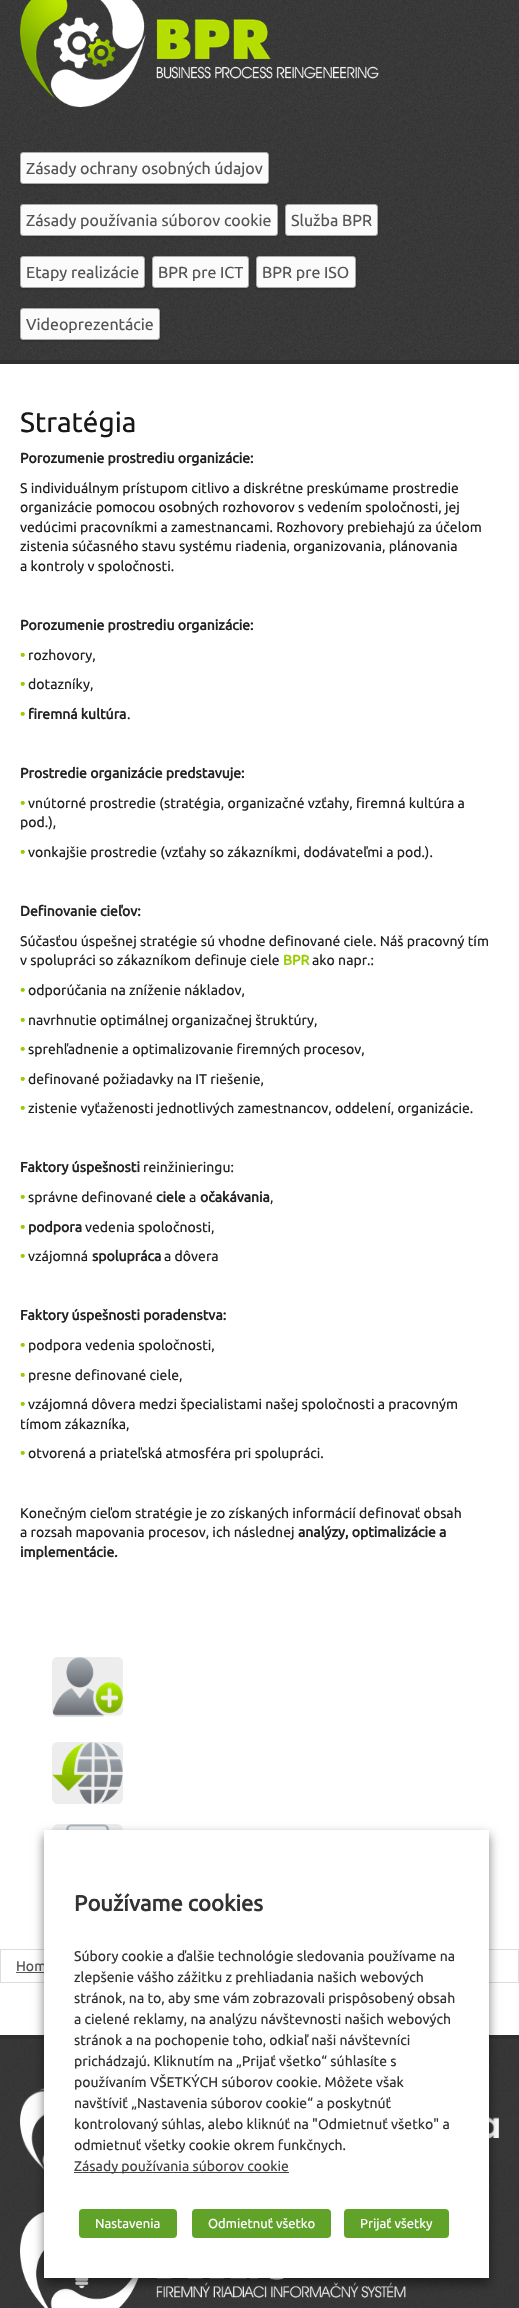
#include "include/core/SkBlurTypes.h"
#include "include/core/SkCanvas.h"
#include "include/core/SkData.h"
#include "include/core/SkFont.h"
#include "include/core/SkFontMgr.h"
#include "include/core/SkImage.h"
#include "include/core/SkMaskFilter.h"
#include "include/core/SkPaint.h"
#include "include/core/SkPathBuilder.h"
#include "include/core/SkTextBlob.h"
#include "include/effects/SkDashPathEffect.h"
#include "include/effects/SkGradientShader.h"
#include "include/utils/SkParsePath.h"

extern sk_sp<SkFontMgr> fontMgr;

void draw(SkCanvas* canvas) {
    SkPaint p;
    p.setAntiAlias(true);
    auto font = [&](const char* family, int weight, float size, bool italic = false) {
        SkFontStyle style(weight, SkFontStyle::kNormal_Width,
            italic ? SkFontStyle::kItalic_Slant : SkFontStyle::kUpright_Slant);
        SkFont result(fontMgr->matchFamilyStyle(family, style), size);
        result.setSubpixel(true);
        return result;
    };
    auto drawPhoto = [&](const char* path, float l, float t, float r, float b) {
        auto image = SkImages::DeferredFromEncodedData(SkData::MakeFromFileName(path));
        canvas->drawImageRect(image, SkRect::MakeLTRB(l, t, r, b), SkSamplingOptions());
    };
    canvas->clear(0xFFFFFFFF);
    drawPhoto("media/1.png", 0, 0, 519, 360);
    p.setColor(0xFF2E2F30);
    canvas->drawRect(SkRect::MakeLTRB(0, 360, 519, 364), p);
    drawPhoto("media/2.png", 20, 0, 379, 107);
    p.setColor(0x33000000);
    p.setMaskFilter(SkMaskFilter::MakeBlur(kNormal_SkBlurStyle, 1.5f));
    canvas->drawRoundRect(SkRect::MakeLTRB(20, 153, 269, 185), 3, 3, p);
    p.setMaskFilter(nullptr);
    p.setColor(0xFFFBFBFB);
    canvas->drawRoundRect(SkRect::MakeLTRB(20.5f, 152.5f, 268.5f, 183.5f), 2.5f, 2.5f, p);
    p.setStyle(SkPaint::kStroke_Style);
    p.setStrokeWidth(1);
    p.setColor(0xFFAAAAAA);
    canvas->drawRoundRect(SkRect::MakeLTRB(20.5f, 152.5f, 268.5f, 183.5f), 2.5f, 2.5f, p);
    auto font1 = font("Ubuntu", 400, 16);
    p.setStyle(SkPaint::kFill_Style);
    p.setColor(0xFF555555);
    canvas->drawString("Zásady ochrany osobných údajov", 26, 174, font1, p);
    p.setColor(0x33000000);
    p.setMaskFilter(SkMaskFilter::MakeBlur(kNormal_SkBlurStyle, 1.5f));
    canvas->drawRoundRect(SkRect::MakeLTRB(20, 205, 278, 237), 3, 3, p);
    p.setMaskFilter(nullptr);
    p.setColor(0xFFFBFBFB);
    canvas->drawRoundRect(SkRect::MakeLTRB(20.5f, 204.5f, 277.5f, 235.5f), 2.5f, 2.5f, p);
    p.setStyle(SkPaint::kStroke_Style);
    p.setColor(0xFFAAAAAA);
    canvas->drawRoundRect(SkRect::MakeLTRB(20.5f, 204.5f, 277.5f, 235.5f), 2.5f, 2.5f, p);
    p.setStyle(SkPaint::kFill_Style);
    p.setColor(0xFF555555);
    canvas->drawString("Zásady používania súborov cookie", 26, 226, font1, p);
    p.setColor(0x33000000);
    p.setMaskFilter(SkMaskFilter::MakeBlur(kNormal_SkBlurStyle, 1.5f));
    canvas->drawRoundRect(SkRect::MakeLTRB(285, 205, 378, 237), 3, 3, p);
    p.setMaskFilter(nullptr);
    p.setColor(0xFFFBFBFB);
    canvas->drawRoundRect(SkRect::MakeLTRB(285.5f, 204.5f, 377.5f, 235.5f), 2.5f, 2.5f, p);
    p.setStyle(SkPaint::kStroke_Style);
    p.setColor(0xFFAAAAAA);
    canvas->drawRoundRect(SkRect::MakeLTRB(285.5f, 204.5f, 377.5f, 235.5f), 2.5f, 2.5f, p);
    p.setStyle(SkPaint::kFill_Style);
    p.setColor(0xFF555555);
    canvas->drawString("Služba BPR", 291, 226, font1, p);
    p.setColor(0x33000000);
    p.setMaskFilter(SkMaskFilter::MakeBlur(kNormal_SkBlurStyle, 1.5f));
    canvas->drawRoundRect(SkRect::MakeLTRB(20, 257, 145, 289), 3, 3, p);
    p.setMaskFilter(nullptr);
    p.setColor(0xFFFBFBFB);
    canvas->drawRoundRect(SkRect::MakeLTRB(20.5f, 256.5f, 144.5f, 287.5f), 2.5f, 2.5f, p);
    p.setStyle(SkPaint::kStroke_Style);
    p.setColor(0xFFAAAAAA);
    canvas->drawRoundRect(SkRect::MakeLTRB(20.5f, 256.5f, 144.5f, 287.5f), 2.5f, 2.5f, p);
    p.setStyle(SkPaint::kFill_Style);
    p.setColor(0xFF555555);
    canvas->drawString("Etapy realizácie", 26, 278, font1, p);
    p.setColor(0x33000000);
    p.setMaskFilter(SkMaskFilter::MakeBlur(kNormal_SkBlurStyle, 1.5f));
    canvas->drawRoundRect(SkRect::MakeLTRB(152, 257, 249, 289), 3, 3, p);
    p.setMaskFilter(nullptr);
    p.setColor(0xFFFBFBFB);
    canvas->drawRoundRect(SkRect::MakeLTRB(152.5f, 256.5f, 248.5f, 287.5f), 2.5f, 2.5f, p);
    p.setStyle(SkPaint::kStroke_Style);
    p.setColor(0xFFAAAAAA);
    canvas->drawRoundRect(SkRect::MakeLTRB(152.5f, 256.5f, 248.5f, 287.5f), 2.5f, 2.5f, p);
    p.setStyle(SkPaint::kFill_Style);
    p.setColor(0xFF555555);
    canvas->drawString("BPR pre ICT", 158, 278, font1, p);
    p.setColor(0x33000000);
    p.setMaskFilter(SkMaskFilter::MakeBlur(kNormal_SkBlurStyle, 1.5f));
    canvas->drawRoundRect(SkRect::MakeLTRB(256, 257, 356, 289), 3, 3, p);
    p.setMaskFilter(nullptr);
    p.setColor(0xFFFBFBFB);
    canvas->drawRoundRect(SkRect::MakeLTRB(256.5f, 256.5f, 355.5f, 287.5f), 2.5f, 2.5f, p);
    p.setStyle(SkPaint::kStroke_Style);
    p.setColor(0xFFAAAAAA);
    canvas->drawRoundRect(SkRect::MakeLTRB(256.5f, 256.5f, 355.5f, 287.5f), 2.5f, 2.5f, p);
    p.setStyle(SkPaint::kFill_Style);
    p.setColor(0xFF555555);
    canvas->drawString("BPR pre ISO", 262, 278, font1, p);
    p.setColor(0x33000000);
    p.setMaskFilter(SkMaskFilter::MakeBlur(kNormal_SkBlurStyle, 1.5f));
    canvas->drawRoundRect(SkRect::MakeLTRB(20, 309, 160, 341), 3, 3, p);
    p.setMaskFilter(nullptr);
    p.setColor(0xFFFBFBFB);
    canvas->drawRoundRect(SkRect::MakeLTRB(20.5f, 308.5f, 159.5f, 339.5f), 2.5f, 2.5f, p);
    p.setStyle(SkPaint::kStroke_Style);
    p.setColor(0xFFAAAAAA);
    canvas->drawRoundRect(SkRect::MakeLTRB(20.5f, 308.5f, 159.5f, 339.5f), 2.5f, 2.5f, p);
    p.setStyle(SkPaint::kFill_Style);
    p.setColor(0xFF555555);
    canvas->drawString("Videoprezentácie", 26, 330, font1, p);
    auto font2 = font("Ubuntu", 400, 28);
    p.setColor(0xFF181818);
    canvas->drawString("Stratégia", 20, 432, font2, p);
    auto font3 = font("Ubuntu", 700, 14);
    p.setColor(0xFF222222);
    canvas->drawString("Porozumenie prostrediu organizácie:", 20, 463, font3, p);
    auto font4 = font("Ubuntu", 400, 14);
    {
        const struct { const char* s; float x, y; } items[] = {
            {"S individuálnym prístupom citlivo a diskrétne preskúmame prostredie", 20, 493},
            {"organizácie pomocou osobných rozhovorov s vedením spoločnosti, jej", 20, 512},
            {"vedúcimi pracovníkmi a zamestnancami. Rozhovory prebiehajú za účelom", 20, 532},
            {"zistenia súčasného stavu systému riadenia, organizovania, plánovania", 20, 551},
            {"a kontroly v spoločnosti.", 20, 571},
        };
        for (auto [s, x, y] : items) {
            canvas->drawString(s, x, y, font4, p);
        }
    }
    canvas->drawString("Porozumenie prostrediu organizácie:", 20, 630, font3, p);
    p.setColor(0xFF99CC00);
    canvas->drawString("•", 20, 660, font3, p);
    p.setColor(0xFF222222);
    canvas->drawString("rozhovory,", 28, 660, font4, p);
    p.setColor(0xFF99CC00);
    canvas->drawString("•", 20, 689, font3, p);
    p.setColor(0xFF222222);
    canvas->drawString("dotazníky,", 28, 689, font4, p);
    p.setColor(0xFF99CC00);
    canvas->drawString("•", 20, 719, font3, p);
    p.setColor(0xFF222222);
    canvas->drawString("firemná kultúra", 28, 719, font3, p);
    canvas->drawString(".", 127, 719, font4, p);
    canvas->drawString("Prostredie organizácie predstavuje:", 20, 778, font3, p);
    p.setColor(0xFF99CC00);
    canvas->drawString("•", 20, 808, font3, p);
    p.setColor(0xFF222222);
    canvas->drawString("vnútorné prostredie (stratégia, organizačné vzťahy, firemná kultúra a", 28, 808, font4, p);
    canvas->drawString("pod.),", 20, 827, font4, p);
    p.setColor(0xFF99CC00);
    canvas->drawString("•", 20, 857, font3, p);
    p.setColor(0xFF222222);
    canvas->drawString("vonkajšie prostredie (vzťahy so zákazníkmi, dodávateľmi a pod.).", 28, 857, font4, p);
    canvas->drawString("Definovanie cieľov:", 20, 916, font3, p);
    canvas->drawString("Súčasťou úspešnej stratégie sú vhodne definované ciele. Náš pracovný tím", 20, 946, font4, p);
    canvas->drawString("v spolupráci so zákazníkom definuje ciele", 20, 965, font4, p);
    p.setColor(0xFF99CC00);
    canvas->drawString("BPR", 283, 965, font3, p);
    p.setColor(0xFF222222);
    canvas->drawString("ako napr.:", 312, 965, font4, p);
    p.setColor(0xFF99CC00);
    canvas->drawString("•", 20, 995, font3, p);
    p.setColor(0xFF222222);
    canvas->drawString("odporúčania na zníženie nákladov,", 28, 995, font4, p);
    p.setColor(0xFF99CC00);
    canvas->drawString("•", 20, 1025, font3, p);
    p.setColor(0xFF222222);
    canvas->drawString("navrhnutie optimálnej organizačnej štruktúry,", 28, 1025, font4, p);
    p.setColor(0xFF99CC00);
    canvas->drawString("•", 20, 1054, font3, p);
    p.setColor(0xFF222222);
    canvas->drawString("sprehľadnenie a optimalizovanie firemných procesov,", 28, 1054, font4, p);
    p.setColor(0xFF99CC00);
    canvas->drawString("•", 20, 1084, font3, p);
    p.setColor(0xFF222222);
    canvas->drawString("definované požiadavky na IT riešenie,", 28, 1084, font4, p);
    p.setColor(0xFF99CC00);
    canvas->drawString("•", 20, 1113, font3, p);
    p.setColor(0xFF222222);
    canvas->drawString("zistenie vyťaženosti jednotlivých zamestnancov, oddelení, organizácie.", 28, 1113, font4, p);
    canvas->drawString("Faktory úspešnosti", 20, 1172, font3, p);
    canvas->drawString("reinžinieringu:", 143, 1172, font4, p);
    p.setColor(0xFF99CC00);
    canvas->drawString("•", 20, 1202, font3, p);
    p.setColor(0xFF222222);
    canvas->drawString("správne definované", 28, 1202, font4, p);
    canvas->drawString("ciele", 156, 1202, font3, p);
    canvas->drawString("a", 189, 1202, font4, p);
    canvas->drawString("očakávania", 200, 1202, font3, p);
    canvas->drawString(",", 270, 1202, font4, p);
    p.setColor(0xFF99CC00);
    canvas->drawString("•", 20, 1232, font3, p);
    p.setColor(0xFF222222);
    canvas->drawString("podpora", 28, 1232, font3, p);
    canvas->drawString("vedenia spoločnosti,", 85, 1232, font4, p);
    p.setColor(0xFF99CC00);
    canvas->drawString("•", 20, 1261, font3, p);
    p.setColor(0xFF222222);
    canvas->drawString("vzájomná", 28, 1261, font4, p);
    canvas->drawString("spolupráca", 92, 1261, font3, p);
    canvas->drawString("a dôvera", 164, 1261, font4, p);
    canvas->drawString("Faktory úspešnosti poradenstva:", 20, 1320, font3, p);
    p.setColor(0xFF99CC00);
    canvas->drawString("•", 20, 1350, font3, p);
    p.setColor(0xFF222222);
    canvas->drawString("podpora vedenia spoločnosti,", 28, 1350, font4, p);
    p.setColor(0xFF99CC00);
    canvas->drawString("•", 20, 1380, font3, p);
    p.setColor(0xFF222222);
    canvas->drawString("presne definované ciele,", 28, 1380, font4, p);
    p.setColor(0xFF99CC00);
    canvas->drawString("•", 20, 1409, font3, p);
    p.setColor(0xFF222222);
    canvas->drawString("vzájomná dôvera medzi špecialistami našej spoločnosti a pracovným", 28, 1409, font4, p);
    canvas->drawString("tímom zákazníka,", 20, 1429, font4, p);
    p.setColor(0xFF99CC00);
    canvas->drawString("•", 20, 1458, font3, p);
    p.setColor(0xFF222222);
    {
        const struct { const char* s; float x, y; } items[] = {
            {"otvorená a priateľská atmosféra pri spolupráci.", 28, 1458},
            {"Konečným cieľom stratégie je zo získaných informácií definovať obsah", 20, 1518},
            {"a rozsah mapovania procesov, ich následnej", 20, 1537},
        };
        for (auto [s, x, y] : items) {
            canvas->drawString(s, x, y, font4, p);
        }
    }
    canvas->drawString("analýzy, optimalizácie a", 298, 1537, font3, p);
    canvas->drawString("implementácie", 20, 1557, font3, p);
    auto font5 = font("Ubuntu", 700, 14, true);
    canvas->drawString(".", 114, 1557, font5, p);
    drawPhoto("media/3.png", 52, 1657, 123, 1717);
    drawPhoto("media/4.png", 52, 1742, 123, 1804);
    drawPhoto("media/5.png", 52, 1824, 123, 1830);
    p.setStyle(SkPaint::kStroke_Style);
    p.setColor(0xFFDDDDDD);
    canvas->drawRect(SkRect::MakeLTRB(0.5f, 1949.5f, 518.5f, 1982.5f), p);
    p.setStyle(SkPaint::kFill_Style);
    p.setColor(0xFF555555);
    canvas->drawString("Hom", 16, 1971, font4, p);
    canvas->drawRect(SkRect::MakeLTRB(16, 1972, 44, 1973), p);
    drawPhoto("media/6.png", 0, 2039, 519, 2308);
    p.setColor(0xFF2E2F30);
    canvas->drawRect(SkRect::MakeLTRB(0, 2035, 519, 2039), p);
    drawPhoto("media/7.png", 20, 2088, 499, 2170);
    drawPhoto("media/8.png", 20, 2211, 406, 2308);
    p.setColor(0x80000000);
    p.setMaskFilter(SkMaskFilter::MakeBlur(kNormal_SkBlurStyle, 5));
    canvas->drawRect(SkRect::MakeLTRB(44, 1835, 489, 2283), p);
    p.setMaskFilter(nullptr);
    p.setColor(0xFFFFFFFF);
    canvas->drawRect(SkRect::MakeLTRB(44, 1830, 489, 2278), p);
    auto font6 = font("Ubuntu", 700, 22);
    p.setColor(0xFF333333);
    canvas->drawString("Používame cookies", 74, 1911, font6, p);
    {
        const struct { const char* s; float x, y; } items[] = {
            {"Súbory cookie a ďalšie technológie sledovania používame na", 74, 1961},
            {"zlepšenie vášho zážitku z prehliadania našich webových", 74, 1982},
            {"stránok, na to, aby sme vám zobrazovali prispôsobený obsah", 74, 2003},
            {"a cielené reklamy, na analýzu návštevnosti našich webových", 74, 2024},
            {"stránok a na pochopenie toho, odkiaľ naši návštevníci", 74, 2045},
            {"prichádzajú. Kliknutím na „Prijať všetko“ súhlasíte s", 74, 2066},
            {"používaním VŠETKÝCH súborov cookie. Môžete však", 74, 2087},
            {"navštíviť „Nastavenia súborov cookie“ a poskytnúť", 74, 2108},
            {"kontrolovaný súhlas, alebo kliknúť na \"Odmietnuť všetko\" a", 74, 2129},
            {"odmietnuť všetky cookie okrem funkčnych.", 74, 2150},
        };
        for (auto [s, x, y] : items) {
            canvas->drawString(s, x, y, font4, p);
        }
    }
    p.setColor(0xFF444444);
    canvas->drawRect(SkRect::MakeLTRB(74, 2172, 289, 2173), p);
    canvas->drawString("Zásady používania súborov cookie", 74, 2171, font4, p);
    p.setColor(0xFF61A229);
    canvas->drawRoundRect(SkRect::MakeLTRB(79, 2209, 177, 2238), 4, 4, p);
    auto font7 = font("Ubuntu", 400, 13);
    p.setColor(0xFFFFFFFF);
    canvas->drawString("Nastavenia", 95, 2228, font7, p);
    p.setColor(0xFF61A229);
    canvas->drawRoundRect(SkRect::MakeLTRB(192, 2209, 331, 2238), 4, 4, p);
    p.setColor(0xFFFFFFFF);
    canvas->drawString("Odmietnuť všetko", 208, 2228, font7, p);
    p.setColor(0xFF61A229);
    canvas->drawRoundRect(SkRect::MakeLTRB(344, 2209, 449, 2238), 4, 4, p);
    p.setColor(0xFFFFFFFF);
    canvas->drawString("Prijať všetky", 360, 2228, font7, p);
}
